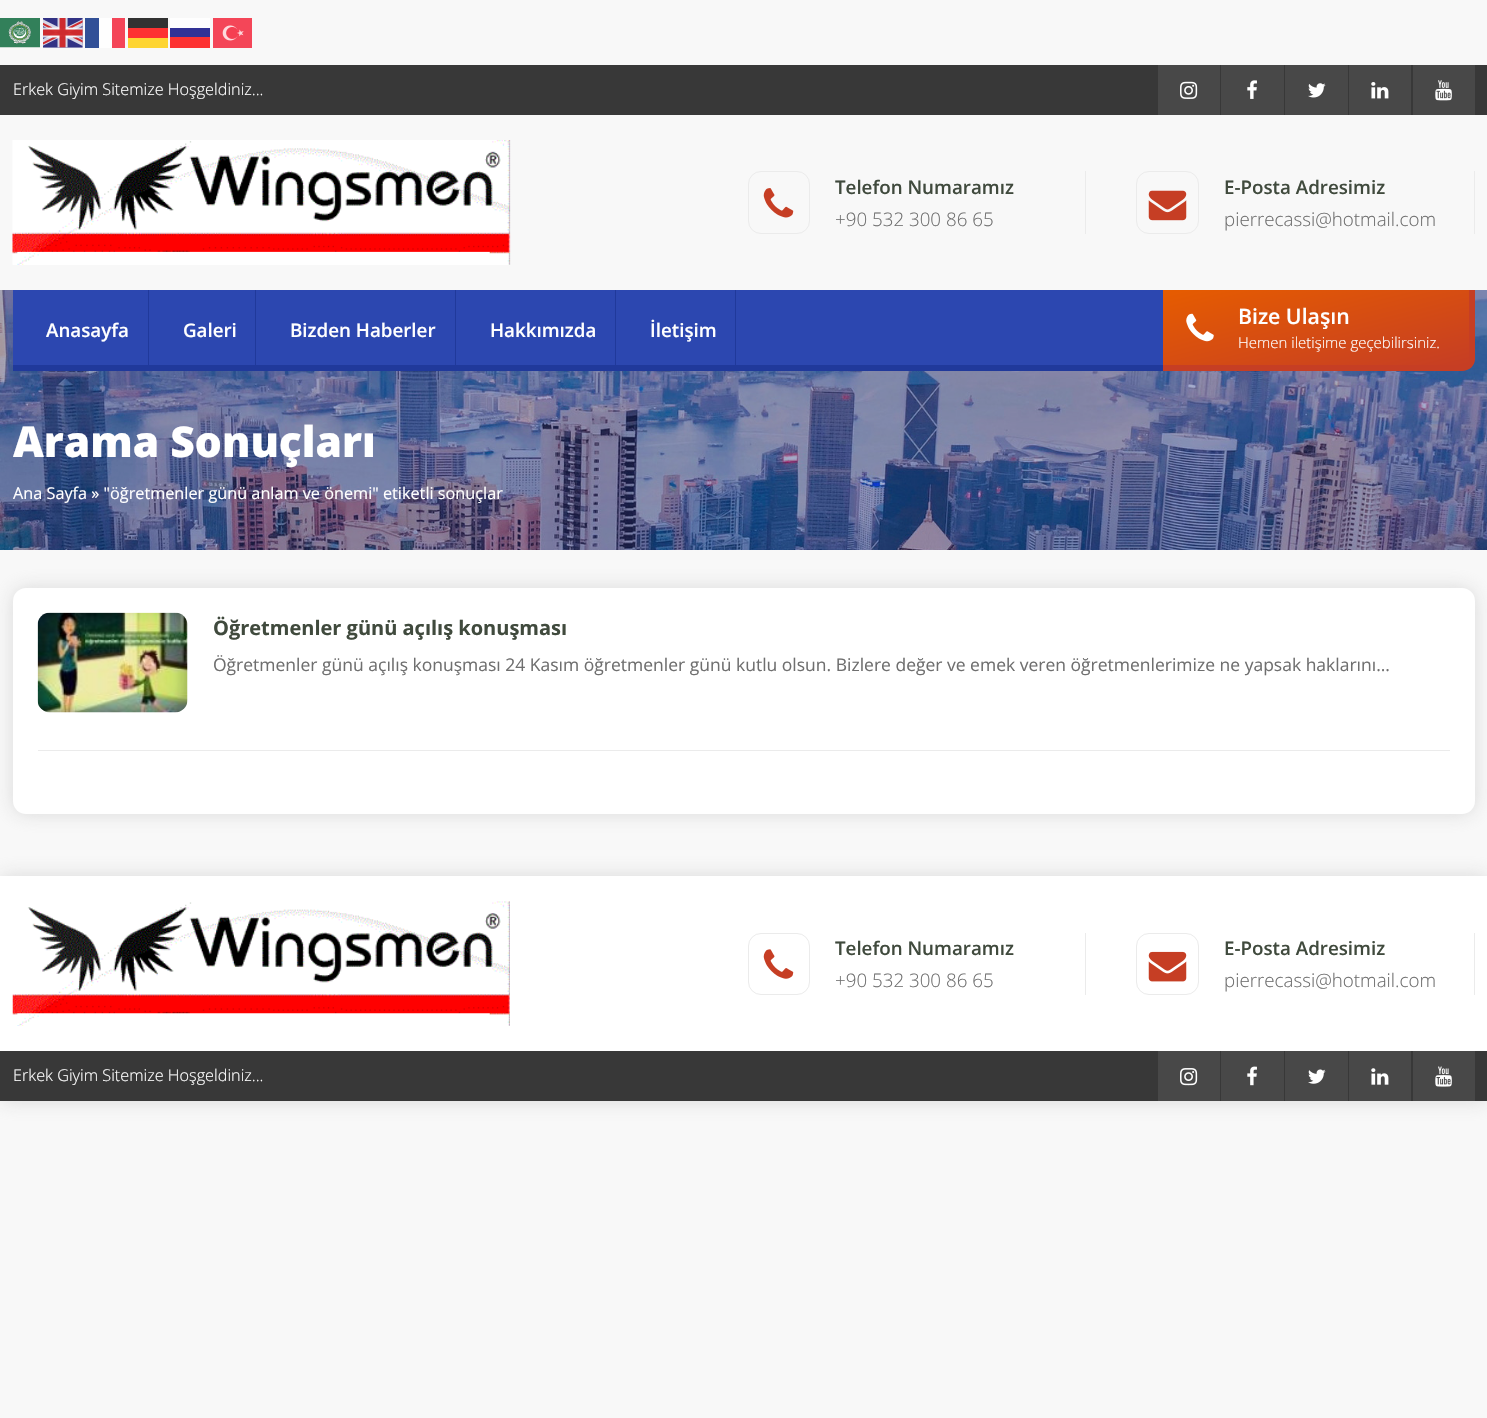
#include "include/core/SkBlurTypes.h"
#include "include/core/SkCanvas.h"
#include "include/core/SkData.h"
#include "include/core/SkFont.h"
#include "include/core/SkFontMgr.h"
#include "include/core/SkImage.h"
#include "include/core/SkMaskFilter.h"
#include "include/core/SkPaint.h"
#include "include/core/SkPathBuilder.h"
#include "include/core/SkTextBlob.h"
#include "include/effects/SkDashPathEffect.h"
#include "include/effects/SkGradientShader.h"
#include "include/utils/SkParsePath.h"

extern sk_sp<SkFontMgr> fontMgr;

void draw(SkCanvas* canvas) {
    SkPaint p;
    p.setAntiAlias(true);
    auto font = [&](const char* family, int weight, float size, bool italic = false) {
        SkFontStyle style(weight, SkFontStyle::kNormal_Width,
            italic ? SkFontStyle::kItalic_Slant : SkFontStyle::kUpright_Slant);
        SkFont result(fontMgr->matchFamilyStyle(family, style), size);
        result.setSubpixel(true);
        return result;
    };
    auto drawPhoto = [&](const char* path, float l, float t, float r, float b) {
        auto image = SkImages::DeferredFromEncodedData(SkData::MakeFromFileName(path));
        canvas->drawImageRect(image, SkRect::MakeLTRB(l, t, r, b), SkSamplingOptions());
    };
    canvas->clear(0xFFF8F8F8);
    drawPhoto("media/1.png", 0, 18, 40, 48);
    drawPhoto("media/2.png", 43, 18, 83, 48);
    {
        const struct { float l, t, r, b; SkColor color; } items[] = {
            {85, 18, 99, 48, 0xFF325097},
            {99, 18, 112, 48, 0xFFFEFEFE},
            {112, 18, 125, 48, 0xFFF44558},
            {128, 18, 168, 28, 0xFF323232},
            {170, 18, 210, 28, 0xFFFEFEFE},
        };
        for (auto [l, t, r, b, color] : items) {
            p.setColor(color);
            canvas->drawRect(SkRect::MakeLTRB(l, t, r, b), p);
        }
    }
    drawPhoto("media/3.png", 213, 18, 252, 48);
    {
        const struct { float l, t, r, b; SkColor color; } items[] = {
            {128, 28, 168, 38, 0xFFFE3232},
            {170, 28, 210, 37, 0xFF323296},
            {128, 38, 168, 48, 0xFFFED532},
            {170, 37, 210, 48, 0xFFFD3232},
            {0, 65, 1487, 115, 0xFF383838},
        };
        for (auto [l, t, r, b, color] : items) {
            p.setColor(color);
            canvas->drawRect(SkRect::MakeLTRB(l, t, r, b), p);
        }
    }
    auto font1 = font("Open Sans", 300, 16.25f);
    p.setColor(0xFFFFFFFF);
    canvas->drawString("Erkek Giyim Sitemize Hoşgeldiniz...", 13, 95, font1, p);
    p.setColor(0xFF484848);
    canvas->drawRect(SkRect::MakeLTRB(1158, 65, 1220, 115), p);
    drawPhoto("media/4.png", 1180, 81, 1198, 99);
    canvas->drawRect(SkRect::MakeLTRB(1221, 65, 1284, 115), p);
    drawPhoto("media/5.png", 1247, 80, 1257, 99);
    canvas->drawRect(SkRect::MakeLTRB(1285, 65, 1348, 115), p);
    drawPhoto("media/6.png", 1308, 83, 1326, 98);
    canvas->drawRect(SkRect::MakeLTRB(1349, 65, 1411, 115), p);
    drawPhoto("media/7.png", 1371, 82, 1389, 99);
    canvas->drawRect(SkRect::MakeLTRB(1413, 65, 1475, 115), p);
    drawPhoto("media/8.png", 1435, 80, 1452, 101);
    drawPhoto("media/9.png", 12, 140, 511, 265);
    p.setColor(0xFFEBEBEB);
    canvas->drawRect(SkRect::MakeLTRB(1085, 171, 1086, 234), p);
    p.setStyle(SkPaint::kStroke_Style);
    p.setStrokeWidth(1);
    canvas->drawRoundRect(SkRect::MakeLTRB(748.5f, 171.5f, 809.5f, 233.5f), 12.5f, 12.5f, p);
    drawPhoto("media/10.png", 763, 188, 794, 218);
    auto font2 = font("Open Sans", 600, 18.75f);
    p.setStyle(SkPaint::kFill_Style);
    p.setColor(0xFF404A3D);
    canvas->drawString("Telefon Numaramız", 835, 194, font2, p);
    auto font3 = font("Open Sans", 300, 18.75f);
    p.setColor(0xFF6F6F6F);
    canvas->drawString("+90 532 300 86 65", 835, 226, font3, p);
    p.setColor(0xFFEBEBEB);
    canvas->drawRect(SkRect::MakeLTRB(1474, 171, 1475, 234), p);
    p.setStyle(SkPaint::kStroke_Style);
    canvas->drawRoundRect(SkRect::MakeLTRB(1136.5f, 171.5f, 1198.5f, 233.5f), 12.5f, 12.5f, p);
    drawPhoto("media/11.png", 1148, 190, 1187, 221);
    p.setStyle(SkPaint::kFill_Style);
    p.setColor(0xFF404A3D);
    canvas->drawString("E-Posta Adresimiz", 1224, 194, font2, p);
    p.setColor(0xFF6F6F6F);
    canvas->drawString("pierrecassi@hotmail.com", 1224, 226, font3, p);
    p.setColor(0xFF20399B);
    canvas->drawRect(SkRect::MakeLTRB(0, 290, 1487, 550), p);
    drawPhoto("media/13.png", 0, 290, 1487, 550);
    {
        const struct { float l, t, r, b; SkColor color; } items[] = {
            {13, 290, 1163, 365, 0xFF2C47B0},
            {13, 365, 1163, 371, 0xFF20399B},
            {148, 290, 149, 365, 0xFF20399B},
        };
        for (auto [l, t, r, b, color] : items) {
            p.setColor(color);
            canvas->drawRect(SkRect::MakeLTRB(l, t, r, b), p);
        }
    }
    p.setColor(0xFFFFFFFF);
    canvas->drawString("Anasayfa", 46, 337, font2, p);
    p.setColor(0xFF20399B);
    canvas->drawRect(SkRect::MakeLTRB(255, 290, 256, 365), p);
    p.setColor(0xFFFFFFFF);
    canvas->drawString("Galeri", 183, 337, font2, p);
    p.setColor(0xFF20399B);
    canvas->drawRect(SkRect::MakeLTRB(455, 290, 456, 365), p);
    p.setColor(0xFFFFFFFF);
    canvas->drawString("Bizden Haberler", 290, 337, font2, p);
    p.setColor(0xFF20399B);
    canvas->drawRect(SkRect::MakeLTRB(615, 290, 616, 365), p);
    p.setColor(0xFFFFFFFF);
    canvas->drawString("Hakkımızda", 490, 337, font2, p);
    p.setColor(0xFF20399B);
    canvas->drawRect(SkRect::MakeLTRB(735, 290, 736, 365), p);
    p.setColor(0xFFFFFFFF);
    canvas->drawString("İletişim", 650, 337, font2, p);
    {
        const SkColor colors[] = {0xFFE65C00, 0xFFC63E24};
        const float stops[] = {0, 1};
        const SkPoint ends[] = {{1298, 257}, {1333, 398}};
        p.setShader(SkGradientShader::MakeLinear(ends, colors, stops, 2, SkTileMode::kClamp));
        p.setAlpha(255);
    }
    canvas->drawRect(SkRect::MakeLTRB(1163, 290, 1469, 365), p);
    canvas->save();
    canvas->clipRect(SkRect::MakeLTRB(1163, 290, 1475, 371));
    p.setShader(nullptr);
    p.setColor(0xFFC63E24);
    canvas->drawPath(SkPathBuilder(SkPathFillType::kEvenOdd).moveTo(1162, 290).lineTo(1475, 290).lineTo(1475, 359).cubicTo(1475, 366, 1469, 371, 1462, 371).lineTo(1162, 371).close().moveTo(1162, 290).lineTo(1469, 290).lineTo(1469, 359).cubicTo(1469, 362, 1466, 365, 1462, 365).lineTo(1162, 365).close().detach(), p);
    canvas->restore();
    drawPhoto("media/12.png", 1186, 313, 1214, 342);
    auto font4 = font("Open Sans", 600, 21.25f);
    p.setColor(0xFFFFFFFF);
    canvas->drawString("Bize Ulaşın", 1238, 324, font4, p);
    auto font5 = font("Open Sans", 300, 15);
    canvas->drawString("Hemen iletişime geçebilirsiniz.", 1238, 348, font5, p);
    auto font6 = font("Open Sans", 800, 42.5f);
    canvas->drawString("Arama Sonuçları", 13, 457, font6, p);
    auto font7 = font("Open Sans", 400, 16.25f);
    canvas->drawString("Ana Sayfa » \"öğretmenler günü anlam ve önemi\" etiketli sonuçlar", 13, 499, font7, p);
    p.setColor(0x80BABABA);
    p.setMaskFilter(SkMaskFilter::MakeBlur(kNormal_SkBlurStyle, 9.5f));
    canvas->drawRoundRect(SkRect::MakeLTRB(13, 588, 1475, 814), 13, 13, p);
    p.setMaskFilter(nullptr);
    p.setColor(0xFFFFFFFF);
    canvas->drawRoundRect(SkRect::MakeLTRB(13, 588, 1475, 814), 13, 13, p);
    p.setColor(0xFFEBEBEB);
    canvas->drawRect(SkRect::MakeLTRB(38, 750, 1450, 751), p);
    drawPhoto("media/14.png", 37, 612, 188, 713);
    auto font8 = font("Open Sans", 700, 20);
    p.setColor(0xFF404A3D);
    canvas->drawString("Öğretmenler günü açılış konuşması", 213, 635, font8, p);
    auto font9 = font("Open Sans", 400, 17.5f);
    p.setColor(0xFF6F6F6F);
    canvas->drawString("Öğretmenler günü açılış konuşması 24 Kasım öğretmenler günü kutlu olsun. Bizlere değer ve emek veren öğretmenlerimize ne yapsak haklarını...", 213, 671, font9, p);
    p.setColor(0x80BABABA);
    p.setMaskFilter(SkMaskFilter::MakeBlur(kNormal_SkBlurStyle, 9.5f));
    canvas->drawRect(SkRect::MakeLTRB(0, 876, 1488, 1101), p);
    p.setMaskFilter(nullptr);
    p.setColor(0xFFFFFFFF);
    canvas->drawRect(SkRect::MakeLTRB(0, 876, 1487, 1051), p);
    drawPhoto("media/15.png", 12, 901, 510, 1026);
    p.setColor(0xFFEBEBEB);
    canvas->drawRect(SkRect::MakeLTRB(1085, 933, 1086, 995), p);
    p.setStyle(SkPaint::kStroke_Style);
    canvas->drawRoundRect(SkRect::MakeLTRB(748.5f, 933.5f, 809.5f, 994.5f), 12.5f, 12.5f, p);
    drawPhoto("media/16.png", 763, 949, 794, 979);
    p.setStyle(SkPaint::kFill_Style);
    p.setColor(0xFF404A3D);
    canvas->drawString("Telefon Numaramız", 835, 955, font2, p);
    p.setColor(0xFF6F6F6F);
    canvas->drawString("+90 532 300 86 65", 835, 987, font3, p);
    p.setColor(0xFFEBEBEB);
    canvas->drawRect(SkRect::MakeLTRB(1474, 933, 1475, 995), p);
    p.setStyle(SkPaint::kStroke_Style);
    canvas->drawRoundRect(SkRect::MakeLTRB(1136.5f, 933.5f, 1198.5f, 994.5f), 12.5f, 12.5f, p);
    drawPhoto("media/17.png", 1148, 951, 1187, 982);
    p.setStyle(SkPaint::kFill_Style);
    p.setColor(0xFF404A3D);
    canvas->drawString("E-Posta Adresimiz", 1224, 955, font2, p);
    p.setColor(0xFF6F6F6F);
    canvas->drawString("pierrecassi@hotmail.com", 1224, 987, font3, p);
    p.setColor(0xFF383838);
    canvas->drawRect(SkRect::MakeLTRB(0, 1051, 1487, 1101), p);
    p.setColor(0xFFFFFFFF);
    canvas->drawString("Erkek Giyim Sitemize Hoşgeldiniz...", 13, 1081, font1, p);
    p.setColor(0xFF484848);
    canvas->drawRect(SkRect::MakeLTRB(1158, 1051, 1220, 1101), p);
    drawPhoto("media/18.png", 1180, 1068, 1198, 1086);
    canvas->drawRect(SkRect::MakeLTRB(1221, 1051, 1284, 1101), p);
    drawPhoto("media/19.png", 1247, 1066, 1257, 1086);
    canvas->drawRect(SkRect::MakeLTRB(1285, 1051, 1348, 1101), p);
    drawPhoto("media/20.png", 1308, 1069, 1326, 1084);
    canvas->drawRect(SkRect::MakeLTRB(1349, 1051, 1411, 1101), p);
    drawPhoto("media/21.png", 1371, 1068, 1389, 1085);
    canvas->drawRect(SkRect::MakeLTRB(1413, 1051, 1475, 1101), p);
    drawPhoto("media/22.png", 1435, 1066, 1452, 1087);
}
